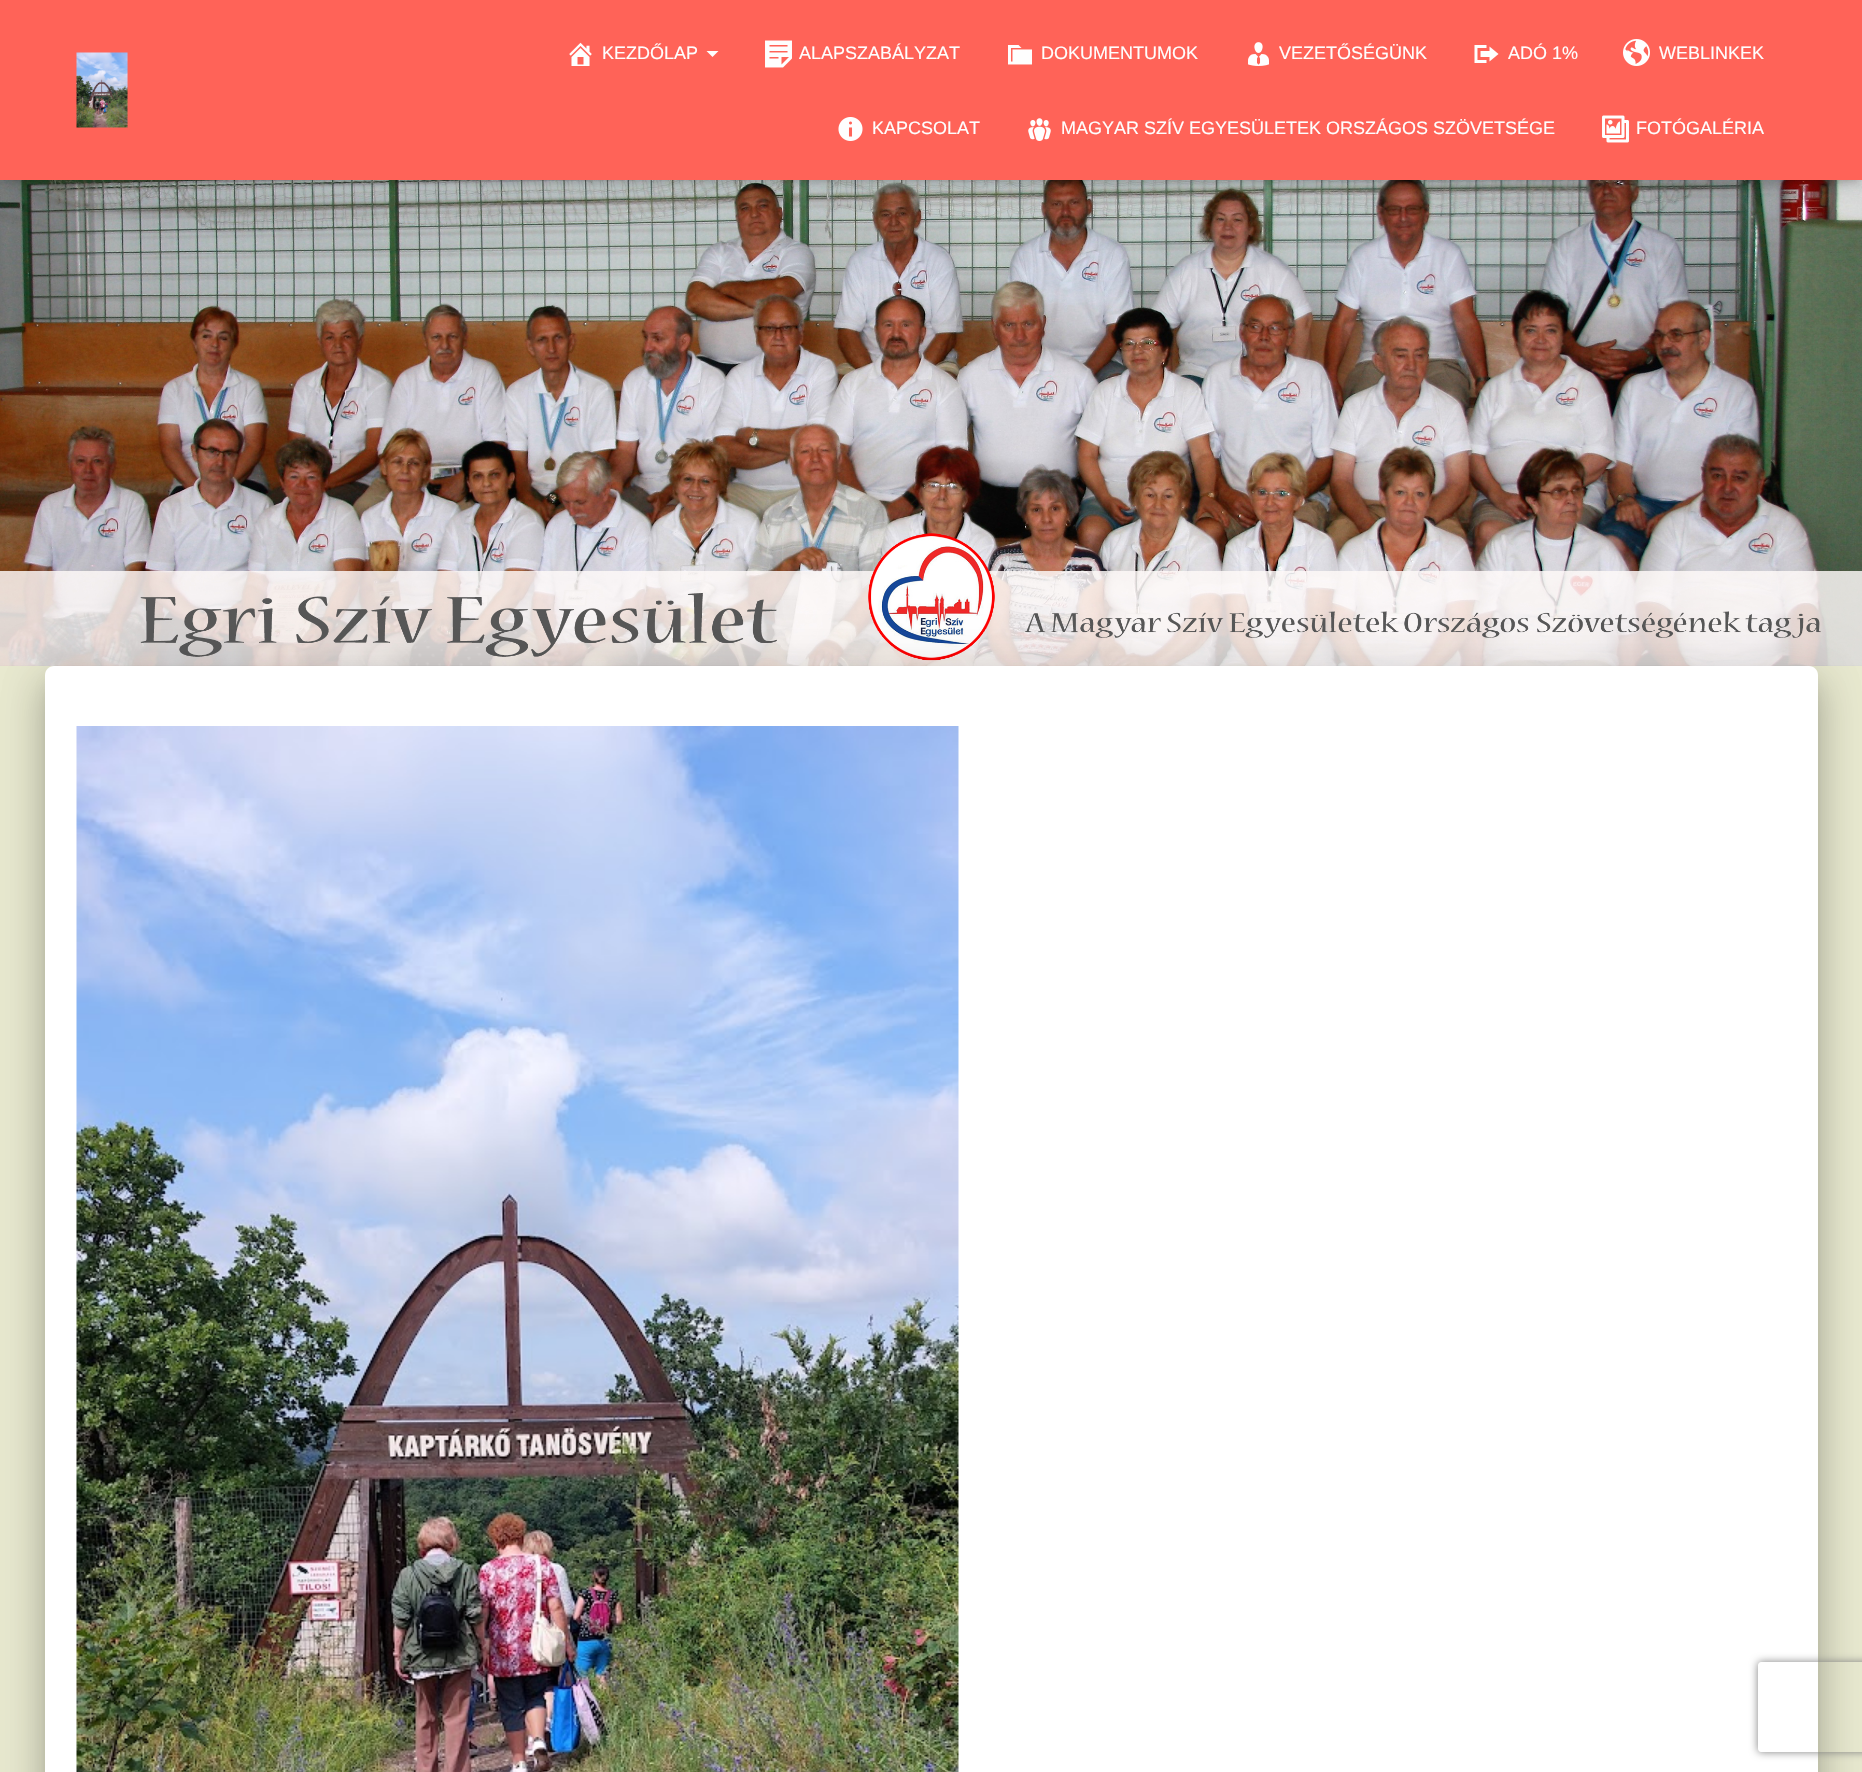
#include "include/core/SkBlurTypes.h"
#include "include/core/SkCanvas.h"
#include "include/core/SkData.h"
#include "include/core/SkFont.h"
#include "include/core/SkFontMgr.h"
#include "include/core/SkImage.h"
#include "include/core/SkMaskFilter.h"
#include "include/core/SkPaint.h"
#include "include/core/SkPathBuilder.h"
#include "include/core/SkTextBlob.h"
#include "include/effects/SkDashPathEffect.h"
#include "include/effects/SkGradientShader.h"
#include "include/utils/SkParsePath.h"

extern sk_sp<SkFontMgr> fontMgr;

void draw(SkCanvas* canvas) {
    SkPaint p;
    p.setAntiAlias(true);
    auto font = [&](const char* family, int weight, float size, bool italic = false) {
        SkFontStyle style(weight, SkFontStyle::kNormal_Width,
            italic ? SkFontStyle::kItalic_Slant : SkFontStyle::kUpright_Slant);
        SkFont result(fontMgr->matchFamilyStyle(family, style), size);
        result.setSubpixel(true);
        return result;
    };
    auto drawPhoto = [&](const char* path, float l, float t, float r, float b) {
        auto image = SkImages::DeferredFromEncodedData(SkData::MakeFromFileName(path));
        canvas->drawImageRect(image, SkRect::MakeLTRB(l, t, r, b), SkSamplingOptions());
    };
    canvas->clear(0xFFE9EAD0);
    drawPhoto("media/12.png", 0, 180, 1862, 666);
    p.setColor(0x1A000000);
    p.setMaskFilter(SkMaskFilter::MakeBlur(kNormal_SkBlurStyle, 4));
    canvas->drawRect(SkRect::MakeLTRB(3, 9, 1860, 183), p);
    p.setMaskFilter(nullptr);
    p.setColor(0x1F000000);
    p.setMaskFilter(SkMaskFilter::MakeBlur(kNormal_SkBlurStyle, 7.5f));
    canvas->drawRect(SkRect::MakeLTRB(0, 2, 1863, 182), p);
    p.setMaskFilter(nullptr);
    p.setColor(0x6B000000);
    p.setMaskFilter(SkMaskFilter::MakeBlur(kNormal_SkBlurStyle, 7.5f));
    canvas->drawRect(SkRect::MakeLTRB(9, 11, 1854, 173), p);
    p.setMaskFilter(nullptr);
    p.setColor(0xFFFF6358);
    canvas->drawRect(SkRect::MakeLTRB(0, 0, 1862, 180), p);
    drawPhoto("media/1.png", 76, 52, 128, 128);
    drawPhoto("media/2.png", 569, 42, 592, 66);
    auto font1 = font("Liberation Sans", 400, 18);
    p.setColor(0xFFFEFEFE);
    canvas->drawString("KEZDŐLAP", 602, 59, font1, p);
    canvas->drawPath(SkPathBuilder().moveTo(706.5f, 51).lineTo(718.5f, 51).lineTo(712.5f, 57).close().detach(), p);
    drawPhoto("media/3.png", 765, 40, 792, 68);
    canvas->drawString("ALAPSZABÁLYZAT", 799, 59, font1, p);
    drawPhoto("media/4.png", 1008, 45, 1032, 65);
    canvas->drawString("DOKUMENTUMOK", 1041, 59, font1, p);
    drawPhoto("media/5.png", 1248, 42, 1269, 66);
    canvas->drawString("VEZETŐSÉGÜNK", 1279, 59, font1, p);
    drawPhoto("media/6.png", 1474, 45, 1499, 63);
    canvas->drawString("ADÓ 1%", 1508, 59, font1, p);
    drawPhoto("media/7.png", 1623, 39, 1650, 66);
    canvas->drawString("WEBLINKEK", 1659, 59, font1, p);
    drawPhoto("media/8.png", 838, 117, 863, 141);
    canvas->drawString("KAPCSOLAT", 872, 134, font1, p);
    drawPhoto("media/9.png", 1028, 118, 1051, 141);
    canvas->drawString("MAGYAR SZÍV EGYESÜLETEK ORSZÁGOS SZÖVETSÉGE", 1061, 134, font1, p);
    drawPhoto("media/10.png", 1602, 115, 1629, 143);
    canvas->drawString("FOTÓGALÉRIA", 1636, 134, font1, p);
    p.setColor(0x33000000);
    p.setMaskFilter(SkMaskFilter::MakeBlur(kNormal_SkBlurStyle, 7.5f));
    canvas->drawRoundRect(SkRect::MakeLTRB(53, 686, 1811, 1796), 1.5f, 1.5f, p);
    p.setMaskFilter(nullptr);
    p.setColor(0x1F000000);
    p.setMaskFilter(SkMaskFilter::MakeBlur(kNormal_SkBlurStyle, 22.5f));
    canvas->drawRoundRect(SkRect::MakeLTRB(38, 668, 1826, 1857), 17, 17, p);
    p.setMaskFilter(nullptr);
    p.setColor(0x24000000);
    p.setMaskFilter(SkMaskFilter::MakeBlur(kNormal_SkBlurStyle, 18));
    canvas->drawRoundRect(SkRect::MakeLTRB(42, 687, 1821, 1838), 12, 12, p);
    p.setMaskFilter(nullptr);
    p.setColor(0xFFFFFFFF);
    canvas->drawPath(SkPathBuilder().moveTo(54, 666).lineTo(1809, 666).cubicTo(1814, 666, 1818, 670, 1818, 675).lineTo(1818, 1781).lineTo(45, 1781).lineTo(45, 675).cubicTo(45, 670, 49, 666, 54, 666).close().detach(), p);
    drawPhoto("media/11.png", 76, 726, 959, 1772);
    canvas->save();
    canvas->clipPath(SkPathBuilder(SkPathFillType::kEvenOdd).moveTo(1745, 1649).lineTo(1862, 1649).lineTo(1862, 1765).lineTo(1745, 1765).close().moveTo(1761, 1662).lineTo(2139, 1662).cubicTo(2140.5f, 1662, 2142, 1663.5f, 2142, 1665).lineTo(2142, 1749).cubicTo(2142, 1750.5f, 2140.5f, 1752, 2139, 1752).lineTo(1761, 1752).cubicTo(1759.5f, 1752, 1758, 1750.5f, 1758, 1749).lineTo(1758, 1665).cubicTo(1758, 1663.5f, 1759.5f, 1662, 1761, 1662).close().detach(), true);
    p.setColor(0xFF808080);
    p.setMaskFilter(SkMaskFilter::MakeBlur(kNormal_SkBlurStyle, 4));
    canvas->drawRoundRect(SkRect::MakeLTRB(1758, 1662, 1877, 1752), 3, 3, p);
    p.setMaskFilter(nullptr);
    canvas->restore();
}
